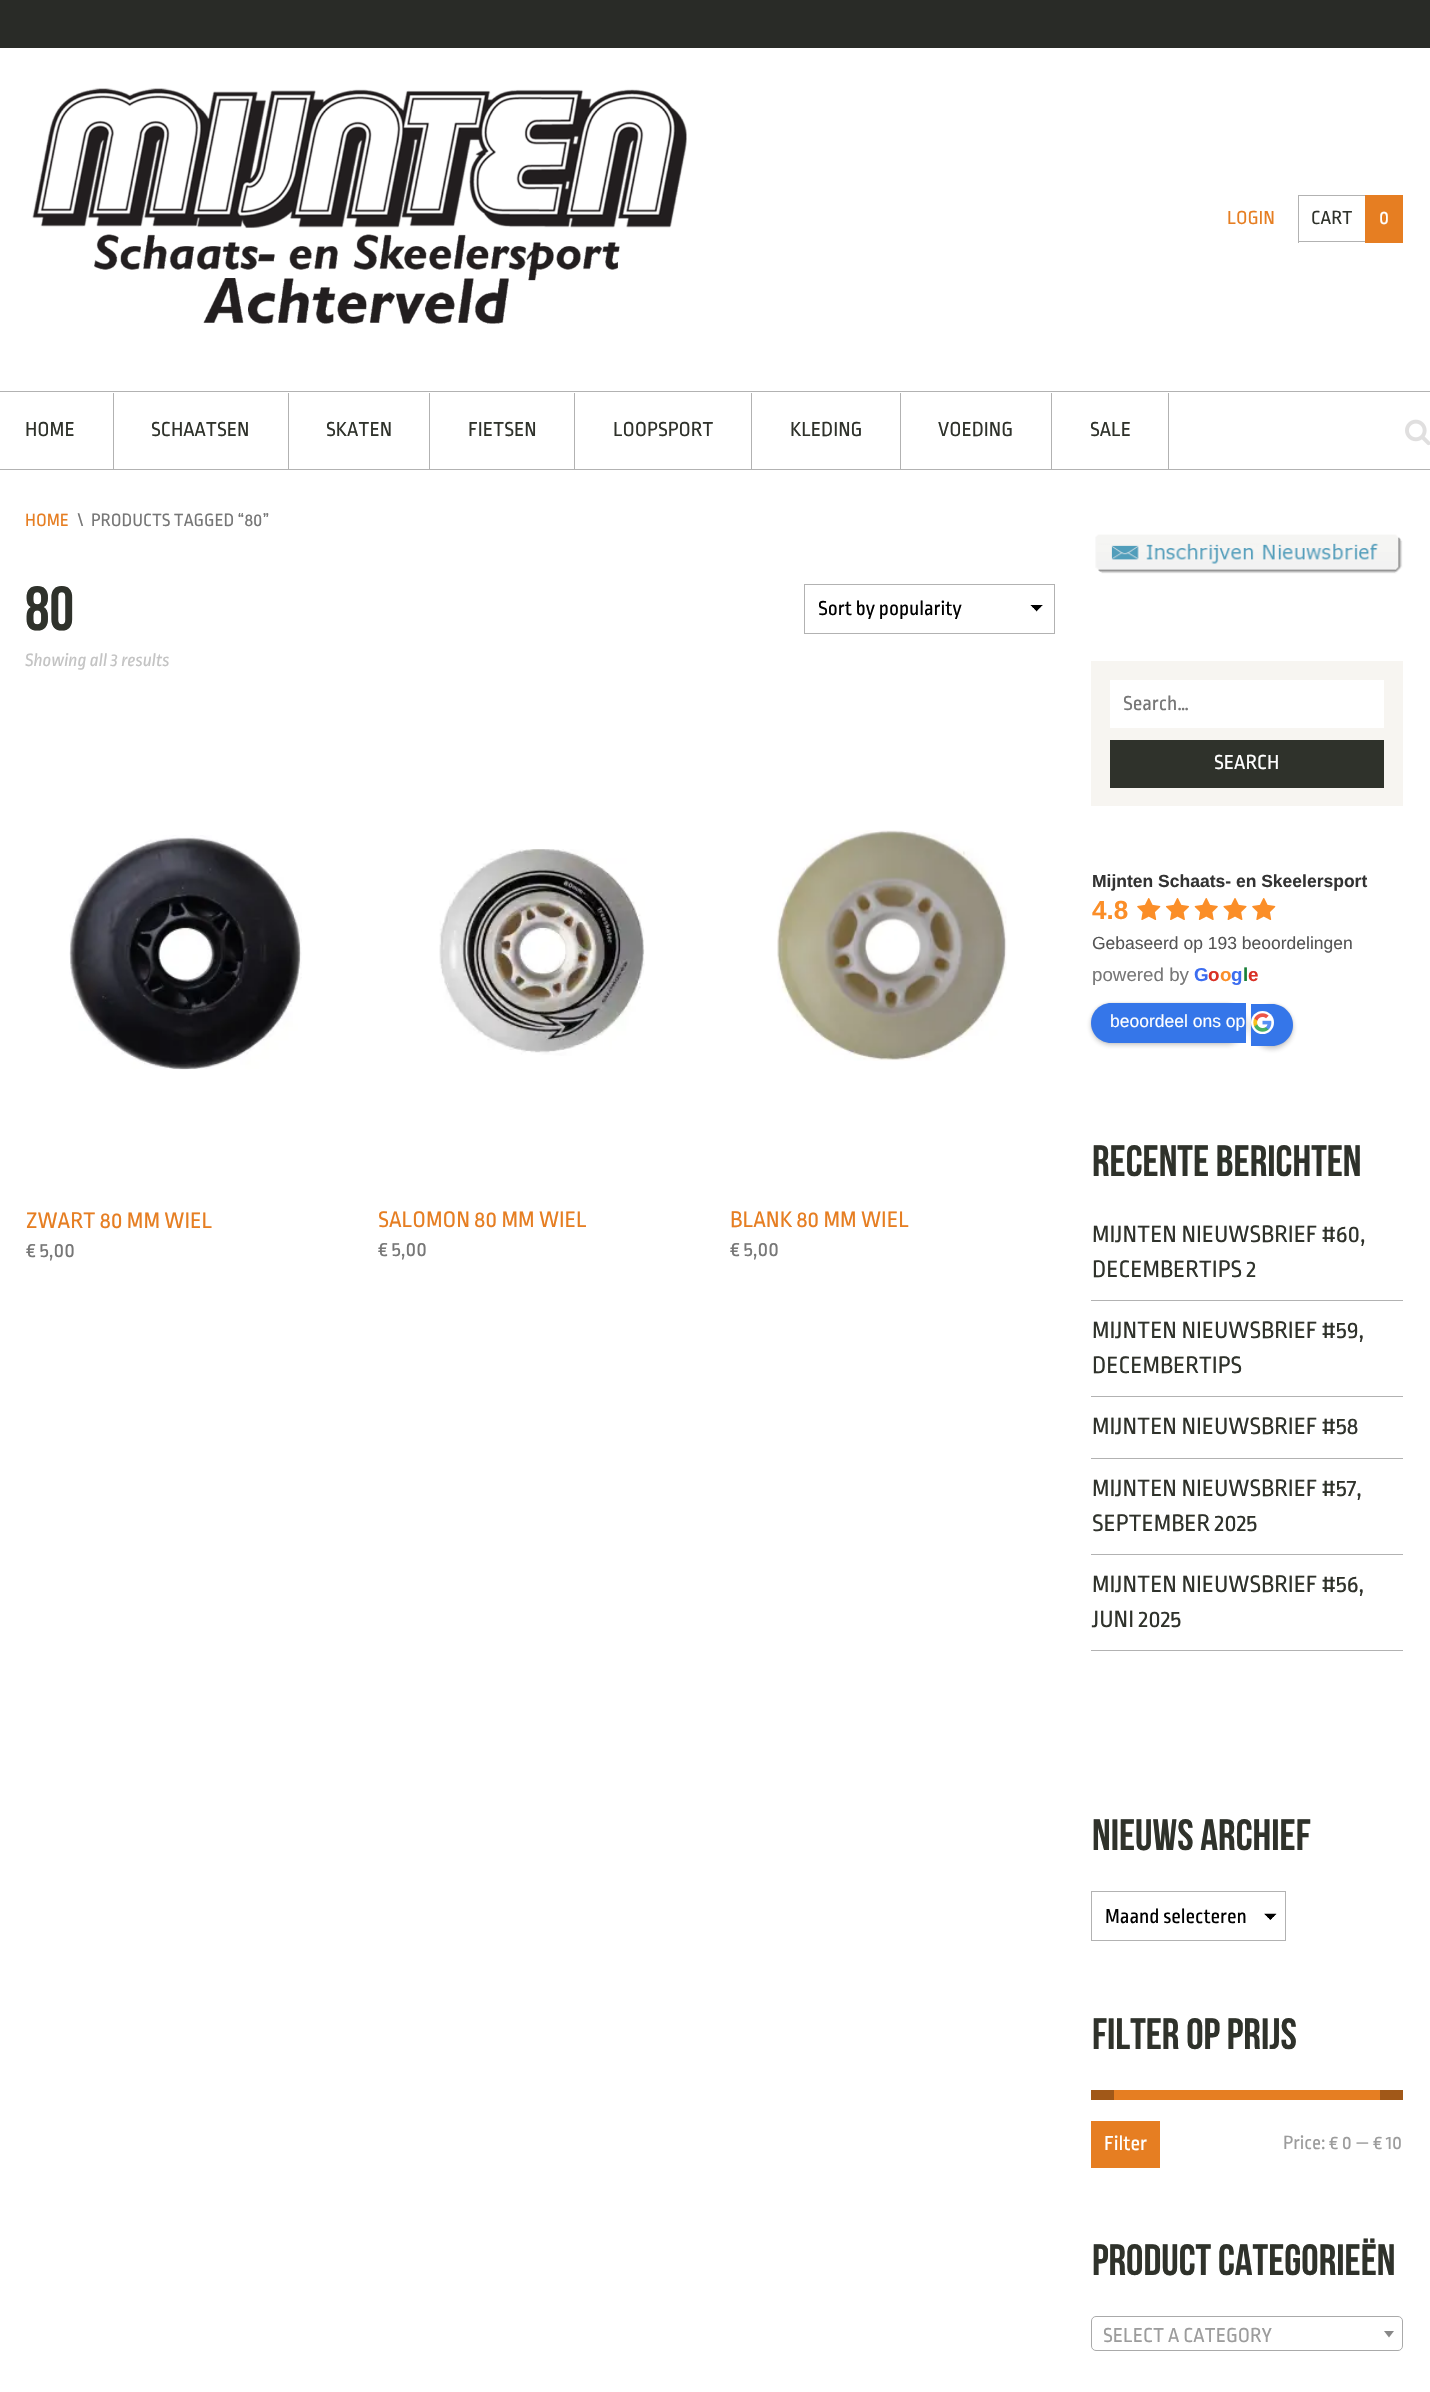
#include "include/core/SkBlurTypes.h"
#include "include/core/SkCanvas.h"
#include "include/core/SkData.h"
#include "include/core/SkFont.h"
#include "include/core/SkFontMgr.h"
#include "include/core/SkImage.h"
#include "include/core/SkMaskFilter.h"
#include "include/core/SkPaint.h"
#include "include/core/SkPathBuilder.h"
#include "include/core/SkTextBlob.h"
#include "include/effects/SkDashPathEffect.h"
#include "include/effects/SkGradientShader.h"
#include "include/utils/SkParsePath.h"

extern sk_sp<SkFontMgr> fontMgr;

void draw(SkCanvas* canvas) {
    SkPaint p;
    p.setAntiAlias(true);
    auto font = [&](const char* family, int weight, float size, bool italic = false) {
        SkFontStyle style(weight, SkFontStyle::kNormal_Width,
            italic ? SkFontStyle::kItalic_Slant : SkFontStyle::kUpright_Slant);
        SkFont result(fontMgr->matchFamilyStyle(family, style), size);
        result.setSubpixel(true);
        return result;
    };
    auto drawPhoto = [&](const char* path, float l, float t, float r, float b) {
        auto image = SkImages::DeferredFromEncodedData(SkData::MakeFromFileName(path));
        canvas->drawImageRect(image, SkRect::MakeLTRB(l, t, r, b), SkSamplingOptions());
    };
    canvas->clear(0xFFFFFFFF);
    p.setColor(0xFF292B27);
    canvas->drawRect(SkRect::MakeLTRB(0, 0, 1430, 48), p);
    drawPhoto("media/1.png", 32, 88, 687, 324);
    auto font1 = font("Ropa Sans", 400, 20);
    p.setColor(0xFFE67E22);
    canvas->drawString("LOGIN", 1227, 224, font1, p);
    {
        const struct { float l, t, r, b; SkColor color; } items[] = {
            {1298, 195, 1365, 196, 0xFFB2B2B2},
            {1298, 241, 1365, 242, 0xFFB2B2B2},
            {1298, 195, 1299, 243, 0xFFB2B2B2},
        };
        for (auto [l, t, r, b, color] : items) {
            p.setColor(color);
            canvas->drawRect(SkRect::MakeLTRB(l, t, r, b), p);
        }
    }
    p.setColor(0xFF2F322B);
    canvas->drawString("CART", 1311, 224, font1, p);
    p.setColor(0xFFE67E22);
    canvas->drawRect(SkRect::MakeLTRB(1365, 195, 1403, 243), p);
    p.setColor(0xFFFFFFFF);
    canvas->drawString("0", 1379, 224, font1, p);
    {
        const struct { float l, t, r, b; SkColor color; } items[] = {
            {0, 391, 1430, 392, 0xFFB2B2B2},
            {0, 469, 1430, 470, 0xFFB2B2B2},
            {113, 393, 114, 469, 0xFFB2B2B2},
        };
        for (auto [l, t, r, b, color] : items) {
            p.setColor(color);
            canvas->drawRect(SkRect::MakeLTRB(l, t, r, b), p);
        }
    }
    auto font2 = font("Ropa Sans", 400, 21.25f);
    p.setColor(0xFF2F322B);
    canvas->drawString("HOME", 25, 436, font2, p);
    p.setColor(0xFFB2B2B2);
    canvas->drawRect(SkRect::MakeLTRB(288, 393, 289, 469), p);
    p.setColor(0xFF2F322B);
    canvas->drawString("SCHAATSEN", 151, 436, font2, p);
    p.setColor(0xFFB2B2B2);
    canvas->drawRect(SkRect::MakeLTRB(429, 393, 430, 469), p);
    p.setColor(0xFF2F322B);
    canvas->drawString("SKATEN", 326, 436, font2, p);
    p.setColor(0xFFB2B2B2);
    canvas->drawRect(SkRect::MakeLTRB(574, 393, 575, 469), p);
    p.setColor(0xFF2F322B);
    canvas->drawString("FIETSEN", 468, 436, font2, p);
    p.setColor(0xFFB2B2B2);
    canvas->drawRect(SkRect::MakeLTRB(751, 393, 752, 469), p);
    p.setColor(0xFF2F322B);
    canvas->drawString("LOOPSPORT", 613, 436, font2, p);
    p.setColor(0xFFB2B2B2);
    canvas->drawRect(SkRect::MakeLTRB(900, 393, 901, 469), p);
    p.setColor(0xFF2F322B);
    canvas->drawString("KLEDING", 790, 436, font2, p);
    p.setColor(0xFFB2B2B2);
    canvas->drawRect(SkRect::MakeLTRB(1051, 393, 1052, 469), p);
    p.setColor(0xFF2F322B);
    canvas->drawString("VOEDING", 938, 436, font2, p);
    p.setColor(0xFFB2B2B2);
    canvas->drawRect(SkRect::MakeLTRB(1168, 393, 1169, 469), p);
    p.setColor(0xFF2F322B);
    canvas->drawString("SALE", 1090, 436, font2, p);
    drawPhoto("media/2.png", 1405, 419, 1430, 446);
    auto font3 = font("Ropa Sans", 400, 18.75f);
    p.setColor(0xFFE67E22);
    canvas->drawString("HOME", 25, 526, font3, p);
    p.setColor(0xFF777777);
    canvas->drawString("\\", 78, 526, font3, p);
    canvas->drawString("PRODUCTS TAGGED “80”", 91, 526, font3, p);
    auto font4 = font("Bebas Neue", 400, 62);
    p.setColor(0xFF2F322B);
    canvas->drawString("80", 25, 630, font4, p);
    drawPhoto("media/3.png", 1030, 605, 1043, 612);
    p.setStyle(SkPaint::kStroke_Style);
    p.setStrokeWidth(1);
    p.setColor(0xFFB2B2B2);
    canvas->drawRect(SkRect::MakeLTRB(804.5f, 584.5f, 1054.5f, 633.5f), p);
    p.setStyle(SkPaint::kFill_Style);
    p.setColor(0xFF000000);
    canvas->drawString("Sort by popularity", 818, 615, font2, p);
    auto font5 = font("Ropa Sans", 400, 18.75f, true);
    p.setColor(0xFFC3C3C3);
    canvas->drawString("Showing all 3 results", 25, 666, font5, p);
    drawPhoto("media/4.png", 69, 835, 302, 1070);
    auto font6 = font("Ropa Sans", 400, 23.75f);
    p.setColor(0xFFE67E22);
    canvas->drawString("ZWART 80 MM WIEL", 26, 1228, font6, p);
    p.setColor(0xFF777777);
    canvas->drawString("€ 5,00", 26, 1257, font2, p);
    drawPhoto("media/5.png", 439, 849, 645, 1056);
    p.setColor(0xFFE67E22);
    canvas->drawString("SALOMON 80 MM WIEL", 378, 1227, font6, p);
    p.setColor(0xFF777777);
    canvas->drawString("€ 5,00", 378, 1256, font2, p);
    drawPhoto("media/6.png", 777, 830, 1007, 1061);
    p.setColor(0xFFE67E22);
    canvas->drawString("BLANK 80 MM WIEL", 730, 1227, font6, p);
    p.setColor(0xFF777777);
    canvas->drawString("€ 5,00", 730, 1256, font2, p);
    drawPhoto("media/7.png", 1095, 534, 1403, 574);
    p.setColor(0xFFF7F5F1);
    canvas->drawRect(SkRect::MakeLTRB(1091, 661, 1403, 806), p);
    p.setColor(0xFFFFFFFF);
    canvas->drawRect(SkRect::MakeLTRB(1110, 680, 1384, 728), p);
    p.setColor(0xFF777777);
    canvas->drawString("Search…", 1123, 710, font2, p);
    p.setColor(0xFF2F322B);
    canvas->drawRect(SkRect::MakeLTRB(1110, 740, 1384, 788), p);
    p.setColor(0xFFFFFFFF);
    canvas->drawString("SEARCH", 1214, 769, font2, p);
    auto font7 = font("Liberation Sans", 700, 17.5f);
    p.setColor(0xFF333333);
    canvas->drawString("Mijnten Schaats- en Skeelersport", 1092, 887, font7, p);
    auto font8 = font("Liberation Sans", 700, 26);
    p.setColor(0xFFFB8E28);
    canvas->drawString("4.8", 1092, 919, font8, p);
    drawPhoto("media/8.png", 1137, 898, 1161, 920);
    drawPhoto("media/9.png", 1165, 898, 1190, 920);
    drawPhoto("media/10.png", 1194, 898, 1218, 920);
    drawPhoto("media/11.png", 1223, 898, 1247, 920);
    drawPhoto("media/8.png", 1252, 898, 1276, 920);
    auto font9 = font("Liberation Sans", 400, 17.5f);
    p.setColor(0xFF555555);
    canvas->drawString("Gebaseerd op 193 beoordelingen", 1092, 949, font9, p);
    auto font10 = font("Liberation Sans", 400, 18.75f);
    p.setColor(0xFF777777);
    canvas->drawString("powered by", 1092, 981, font10, p);
    auto font11 = font("Liberation Sans", 700, 18.75f);
    p.setColor(0xFF3C6DF0);
    canvas->drawString("G", 1194, 981, font11, p);
    p.setColor(0xFFD93025);
    canvas->drawString("o", 1208, 981, font11, p);
    p.setColor(0xFFFB8E28);
    canvas->drawString("o", 1220, 981, font11, p);
    p.setColor(0xFF3C6DF0);
    canvas->drawString("g", 1231, 981, font11, p);
    p.setColor(0xFF188038);
    canvas->drawString("l", 1243, 981, font11, p);
    p.setColor(0xFFD93025);
    canvas->drawString("e", 1248, 981, font11, p);
    p.setColor(0x3D1A1A1A);
    p.setMaskFilter(SkMaskFilter::MakeBlur(kNormal_SkBlurStyle, 2.5f));
    canvas->drawRoundRect(SkRect::MakeLTRB(1091, 1005, 1246, 1045), 20, 20, p);
    p.setMaskFilter(nullptr);
    p.setColor(0x1F1A1A1A);
    p.setMaskFilter(SkMaskFilter::MakeBlur(kNormal_SkBlurStyle, 1));
    canvas->drawRoundRect(SkRect::MakeLTRB(1091, 1003, 1246, 1043), 20, 20, p);
    p.setMaskFilter(nullptr);
    p.setColor(0xFF3576E9);
    canvas->drawPath(SkPathBuilder().moveTo(1111, 1003).lineTo(1246, 1003).lineTo(1246, 1043).lineTo(1111, 1043).cubicTo(1100, 1043, 1091, 1034, 1091, 1023).cubicTo(1091, 1012, 1100, 1003, 1111, 1003).close().detach(), p);
    p.setColor(0x3D1A1A1A);
    p.setMaskFilter(SkMaskFilter::MakeBlur(kNormal_SkBlurStyle, 2.5f));
    canvas->drawRoundRect(SkRect::MakeLTRB(1251, 1006, 1293, 1049), 21, 21, p);
    p.setMaskFilter(nullptr);
    p.setColor(0x1F1A1A1A);
    p.setMaskFilter(SkMaskFilter::MakeBlur(kNormal_SkBlurStyle, 1));
    canvas->drawRoundRect(SkRect::MakeLTRB(1251, 1004, 1293, 1046), 21, 21, p);
    p.setMaskFilter(nullptr);
    p.setColor(0xFF3576E9);
    canvas->drawPath(SkPathBuilder().moveTo(1251, 1004).lineTo(1272, 1004).cubicTo(1283.5f, 1004, 1293, 1013.5f, 1293, 1025).cubicTo(1293, 1036.5f, 1283.5f, 1046, 1272, 1046).lineTo(1251, 1046).close().detach(), p);
    p.setColor(0xFFFFFFFF);
    canvas->drawString("beoordeel ons op", 1110, 1027, font9, p);
    canvas->drawCircle(1262.5f, 1022.5f, 11.5f, p);
    drawPhoto("media/12.png", 1253, 1013, 1272, 1032);
    auto font12 = font("Bebas Neue", 400, 43.75f);
    p.setColor(0xFF2F322B);
    canvas->drawString("RECENTE BERICHTEN", 1092, 1176, font12, p);
    p.setColor(0xFFB2B2B2);
    canvas->drawRect(SkRect::MakeLTRB(1091, 1300, 1403, 1301), p);
    auto font13 = font("Ropa Sans", 400, 25);
    p.setColor(0xFF2F322B);
    canvas->drawString("MIJNTEN NIEUWSBRIEF #60,", 1092, 1242, font13, p);
    canvas->drawString("DECEMBERTIPS 2", 1092, 1277, font13, p);
    p.setColor(0xFFB2B2B2);
    canvas->drawRect(SkRect::MakeLTRB(1091, 1396, 1403, 1397), p);
    p.setColor(0xFF2F322B);
    canvas->drawString("MIJNTEN NIEUWSBRIEF #59,", 1092, 1338, font13, p);
    canvas->drawString("DECEMBERTIPS", 1092, 1373, font13, p);
    p.setColor(0xFFB2B2B2);
    canvas->drawRect(SkRect::MakeLTRB(1091, 1458, 1403, 1459), p);
    p.setColor(0xFF2F322B);
    canvas->drawString("MIJNTEN NIEUWSBRIEF #58", 1092, 1434, font13, p);
    p.setColor(0xFFB2B2B2);
    canvas->drawRect(SkRect::MakeLTRB(1091, 1554, 1403, 1555), p);
    p.setColor(0xFF2F322B);
    canvas->drawString("MIJNTEN NIEUWSBRIEF #57,", 1092, 1496, font13, p);
    canvas->drawString("SEPTEMBER 2025", 1092, 1531, font13, p);
    p.setColor(0xFFB2B2B2);
    canvas->drawRect(SkRect::MakeLTRB(1091, 1650, 1403, 1651), p);
    p.setColor(0xFF2F322B);
    canvas->drawString("MIJNTEN NIEUWSBRIEF #56,", 1092, 1592, font13, p);
    canvas->drawString("JUNI 2025", 1092, 1627, font13, p);
    canvas->drawString("NIEUWS ARCHIEF", 1092, 1850, font12, p);
    drawPhoto("media/13.png", 1264, 1913, 1277, 1920);
    p.setStyle(SkPaint::kStroke_Style);
    p.setColor(0xFFB2B2B2);
    canvas->drawRect(SkRect::MakeLTRB(1091.5f, 1891.5f, 1285.5f, 1940.5f), p);
    p.setStyle(SkPaint::kFill_Style);
    p.setColor(0xFF000000);
    canvas->drawString("Maand selecteren", 1105, 1923, font2, p);
    p.setColor(0xFF2F322B);
    canvas->drawString("Filter op prijs", 1092, 2049, font12, p);
    {
        const struct { float l, t, r, b; SkColor color; } items[] = {
            {1091, 2090, 1114, 2100, 0xFFA15818},
            {1114, 2090, 1380, 2100, 0xFFE67E22},
            {1380, 2090, 1403, 2100, 0xFFA15818},
            {1091, 2121, 1160, 2168, 0xFFE67E22},
        };
        for (auto [l, t, r, b, color] : items) {
            p.setColor(color);
            canvas->drawRect(SkRect::MakeLTRB(l, t, r, b), p);
        }
    }
    p.setColor(0xFFFFFFFF);
    canvas->drawString("Filter", 1104, 2150, font2, p);
    p.setColor(0xFF9C9C9C);
    canvas->drawString("Price: € 0 — € 10", 1283, 2149, font1, p);
    p.setColor(0xFF2F322B);
    canvas->drawString("PRODUCT CATEGORIEËN", 1092, 2275, font12, p);
    p.setStyle(SkPaint::kStroke_Style);
    p.setColor(0xFFAAAAAA);
    canvas->drawRoundRect(SkRect::MakeLTRB(1091.5f, 2316.5f, 1402.5f, 2350.5f), 4.5f, 4.5f, p);
    p.setStyle(SkPaint::kFill_Style);
    p.setColor(0xFF9C9C9C);
    canvas->drawString("SELECT A CATEGORY", 1103, 2342, font2, p);
    p.setColor(0xFF888888);
    canvas->drawPath(SkPathBuilder().moveTo(1384, 2331).lineTo(1394, 2331).lineTo(1389, 2337.5f).close().detach(), p);
}
